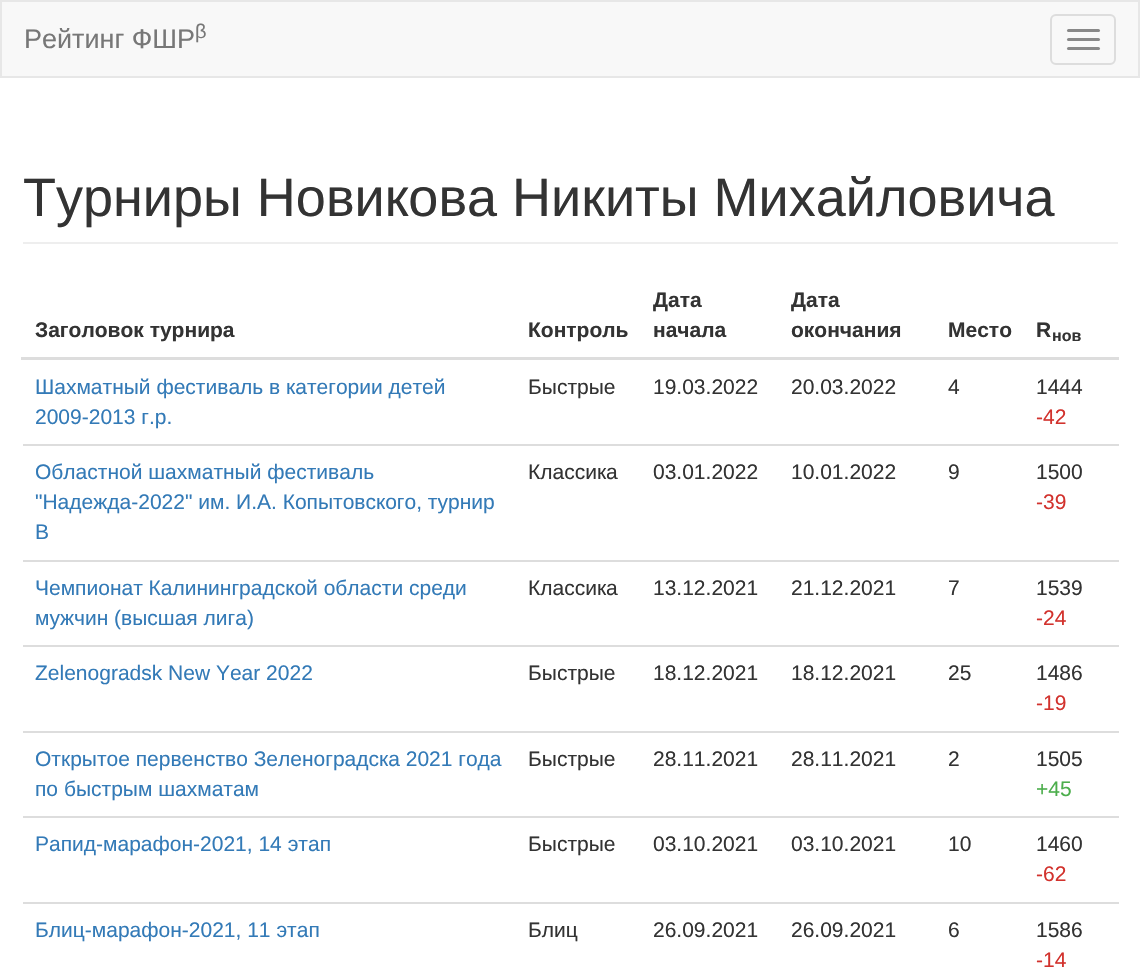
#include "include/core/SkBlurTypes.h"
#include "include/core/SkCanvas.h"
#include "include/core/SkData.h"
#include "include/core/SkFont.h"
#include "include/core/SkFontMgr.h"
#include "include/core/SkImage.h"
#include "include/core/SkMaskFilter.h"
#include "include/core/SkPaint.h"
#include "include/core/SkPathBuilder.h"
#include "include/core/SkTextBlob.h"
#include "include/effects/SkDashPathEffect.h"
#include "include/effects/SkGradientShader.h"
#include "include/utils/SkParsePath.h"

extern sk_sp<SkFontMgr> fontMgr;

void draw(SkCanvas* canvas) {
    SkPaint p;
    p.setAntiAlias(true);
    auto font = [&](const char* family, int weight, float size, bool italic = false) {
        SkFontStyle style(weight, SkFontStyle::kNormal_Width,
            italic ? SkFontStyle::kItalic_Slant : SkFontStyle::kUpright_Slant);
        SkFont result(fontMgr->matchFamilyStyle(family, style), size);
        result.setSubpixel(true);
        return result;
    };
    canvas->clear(0xFFFFFFFF);
    p.setColor(0xFFF8F8F8);
    canvas->drawRect(SkRect::MakeLTRB(1, 1, 1139, 77), p);
    p.setStyle(SkPaint::kStroke_Style);
    p.setStrokeWidth(2);
    p.setColor(0xFFE7E7E7);
    canvas->drawRect(SkRect::MakeLTRB(1, 1, 1139, 77), p);
    auto font1 = font("Liberation Sans", 400, 27);
    p.setStyle(SkPaint::kFill_Style);
    p.setColor(0xFF777777);
    canvas->drawString("Рейтинг ФШР", 24, 48, font1, p);
    auto font2 = font("Liberation Sans", 400, 20);
    canvas->drawString("β", 195, 38, font2, p);
    p.setStyle(SkPaint::kStroke_Style);
    p.setColor(0xFFDDDDDD);
    canvas->drawRoundRect(SkRect::MakeLTRB(1051, 15, 1115, 64), 5, 5, p);
    p.setStyle(SkPaint::kFill_Style);
    p.setColor(0xFF888888);
    canvas->drawRoundRect(SkRect::MakeLTRB(1067, 29, 1100, 32), 1.5f, 1.5f, p);
    canvas->drawRoundRect(SkRect::MakeLTRB(1067, 38, 1100, 41), 1.5f, 1.5f, p);
    canvas->drawRoundRect(SkRect::MakeLTRB(1067, 47, 1100, 50), 1.5f, 1.5f, p);
    p.setColor(0xFFEEEEEE);
    canvas->drawRect(SkRect::MakeLTRB(23, 242, 1118, 244), p);
    auto font3 = font("Liberation Sans", 400, 54);
    p.setColor(0xFF333333);
    canvas->drawString("Турниры Новикова Никиты Михайловича", 23, 216, font3, p);
    auto font4 = font("Liberation Sans", 700, 21);
    {
        const struct { const char* s; float x, y; } items[] = {
            {"Заголовок турнира", 35, 337},
            {"Контроль", 528, 337},
            {"Дата", 653, 307},
            {"начала", 653, 337},
            {"Дата", 791, 307},
            {"окончания", 791, 337},
            {"Место", 948, 337},
        };
        for (auto [s, x, y] : items) {
            canvas->drawString(s, x, y, font4, p);
        }
    }
    p.setColor(0xFFDDDDDD);
    canvas->drawRect(SkRect::MakeLTRB(21, 357, 1119, 360), p);
    p.setColor(0xFF333333);
    canvas->drawString("R", 1036, 337, font4, p);
    auto font5 = font("Liberation Sans", 700, 16);
    canvas->drawString("нов", 1052, 341, font5, p);
    auto font6 = font("Liberation Sans", 400, 21);
    p.setColor(0xFF337AB7);
    canvas->drawString("Шахматный фестиваль в категории детей", 35, 394, font6, p);
    canvas->drawString("2009-2013 г.р.", 35, 424, font6, p);
    p.setColor(0xFF333333);
    {
        const struct { const char* s; float x, y; } items[] = {
            {"Быстрые", 528, 394},
            {"19.03.2022", 653, 394},
            {"20.03.2022", 791, 394},
            {"4", 948, 394},
            {"1444", 1036, 394},
        };
        for (auto [s, x, y] : items) {
            canvas->drawString(s, x, y, font6, p);
        }
    }
    p.setColor(0xFFD2322D);
    canvas->drawString("-42", 1036, 424, font6, p);
    p.setColor(0xFF337AB7);
    {
        const struct { const char* s; float x, y; } items[] = {
            {"Областной шахматный фестиваль", 35, 479},
            {"\"Надежда-2022\" им. И.А. Копытовского, турнир", 35, 509},
            {"В", 35, 539},
        };
        for (auto [s, x, y] : items) {
            canvas->drawString(s, x, y, font6, p);
        }
    }
    p.setColor(0xFF333333);
    {
        const struct { const char* s; float x, y; } items[] = {
            {"Классика", 528, 479},
            {"03.01.2022", 653, 479},
            {"10.01.2022", 791, 479},
            {"9", 948, 479},
        };
        for (auto [s, x, y] : items) {
            canvas->drawString(s, x, y, font6, p);
        }
    }
    p.setColor(0xFFDDDDDD);
    canvas->drawRect(SkRect::MakeLTRB(23, 444, 1119, 446), p);
    p.setColor(0xFF333333);
    canvas->drawString("1500", 1036, 479, font6, p);
    p.setColor(0xFFD2322D);
    canvas->drawString("-39", 1036, 509, font6, p);
    p.setColor(0xFF337AB7);
    canvas->drawString("Чемпионат Калининградской области среди", 35, 595, font6, p);
    canvas->drawString("мужчин (высшая лига)", 35, 625, font6, p);
    p.setColor(0xFF333333);
    {
        const struct { const char* s; float x, y; } items[] = {
            {"Классика", 528, 595},
            {"13.12.2021", 653, 595},
            {"21.12.2021", 791, 595},
            {"7", 948, 595},
        };
        for (auto [s, x, y] : items) {
            canvas->drawString(s, x, y, font6, p);
        }
    }
    p.setColor(0xFFDDDDDD);
    canvas->drawRect(SkRect::MakeLTRB(23, 560, 1119, 562), p);
    p.setColor(0xFF333333);
    canvas->drawString("1539", 1036, 595, font6, p);
    p.setColor(0xFFD2322D);
    canvas->drawString("-24", 1036, 625, font6, p);
    p.setColor(0xFF337AB7);
    canvas->drawString("Zelenogradsk New Year 2022", 35, 680, font6, p);
    p.setColor(0xFF333333);
    {
        const struct { const char* s; float x, y; } items[] = {
            {"Быстрые", 528, 680},
            {"18.12.2021", 653, 680},
            {"18.12.2021", 791, 680},
            {"25", 948, 680},
        };
        for (auto [s, x, y] : items) {
            canvas->drawString(s, x, y, font6, p);
        }
    }
    p.setColor(0xFFDDDDDD);
    canvas->drawRect(SkRect::MakeLTRB(23, 645, 1119, 647), p);
    p.setColor(0xFF333333);
    canvas->drawString("1486", 1036, 680, font6, p);
    p.setColor(0xFFD2322D);
    canvas->drawString("-19", 1036, 710, font6, p);
    p.setColor(0xFF337AB7);
    canvas->drawString("Открытое первенство Зеленоградска 2021 года", 35, 766, font6, p);
    canvas->drawString("по быстрым шахматам", 35, 796, font6, p);
    p.setColor(0xFF333333);
    {
        const struct { const char* s; float x, y; } items[] = {
            {"Быстрые", 528, 766},
            {"28.11.2021", 653, 766},
            {"28.11.2021", 791, 766},
            {"2", 948, 766},
        };
        for (auto [s, x, y] : items) {
            canvas->drawString(s, x, y, font6, p);
        }
    }
    p.setColor(0xFFDDDDDD);
    canvas->drawRect(SkRect::MakeLTRB(23, 731, 1119, 733), p);
    p.setColor(0xFF333333);
    canvas->drawString("1505", 1036, 766, font6, p);
    p.setColor(0xFF4CAE4C);
    canvas->drawString("+45", 1036, 796, font6, p);
    p.setColor(0xFF337AB7);
    canvas->drawString("Рапид-марафон-2021, 14 этап", 35, 851, font6, p);
    p.setColor(0xFF333333);
    {
        const struct { const char* s; float x, y; } items[] = {
            {"Быстрые", 528, 851},
            {"03.10.2021", 653, 851},
            {"03.10.2021", 791, 851},
            {"10", 948, 851},
        };
        for (auto [s, x, y] : items) {
            canvas->drawString(s, x, y, font6, p);
        }
    }
    p.setColor(0xFFDDDDDD);
    canvas->drawRect(SkRect::MakeLTRB(23, 816, 1119, 818), p);
    p.setColor(0xFF333333);
    canvas->drawString("1460", 1036, 851, font6, p);
    p.setColor(0xFFD2322D);
    canvas->drawString("-62", 1036, 881, font6, p);
    p.setColor(0xFF337AB7);
    canvas->drawString("Блиц-марафон-2021, 11 этап", 35, 937, font6, p);
    p.setColor(0xFF333333);
    {
        const struct { const char* s; float x, y; } items[] = {
            {"Блиц", 528, 937},
            {"26.09.2021", 653, 937},
            {"26.09.2021", 791, 937},
            {"6", 948, 937},
        };
        for (auto [s, x, y] : items) {
            canvas->drawString(s, x, y, font6, p);
        }
    }
    p.setColor(0xFFDDDDDD);
    canvas->drawRect(SkRect::MakeLTRB(23, 902, 1119, 904), p);
    p.setColor(0xFF333333);
    canvas->drawString("1586", 1036, 937, font6, p);
    p.setColor(0xFFD2322D);
    canvas->drawString("-14", 1036, 967, font6, p);
}
